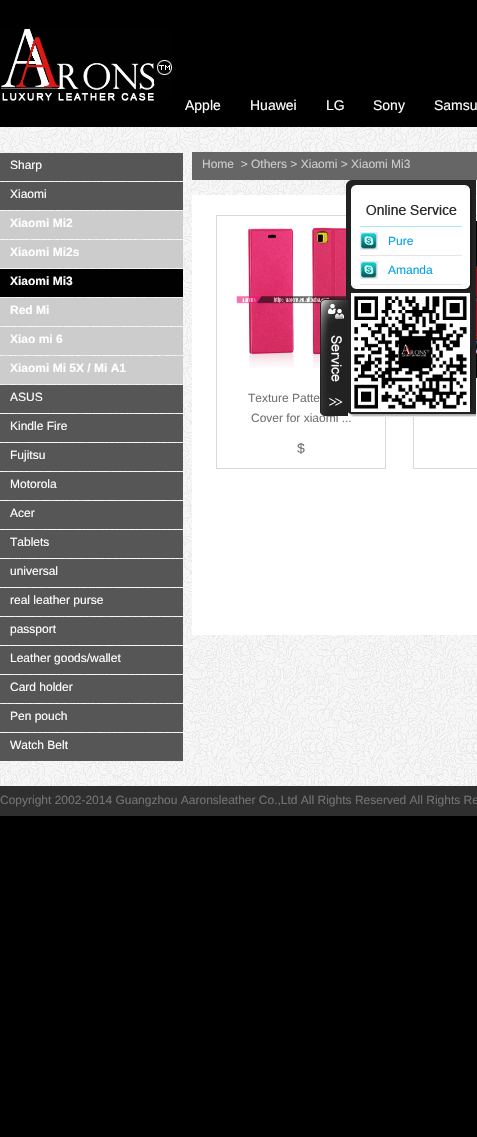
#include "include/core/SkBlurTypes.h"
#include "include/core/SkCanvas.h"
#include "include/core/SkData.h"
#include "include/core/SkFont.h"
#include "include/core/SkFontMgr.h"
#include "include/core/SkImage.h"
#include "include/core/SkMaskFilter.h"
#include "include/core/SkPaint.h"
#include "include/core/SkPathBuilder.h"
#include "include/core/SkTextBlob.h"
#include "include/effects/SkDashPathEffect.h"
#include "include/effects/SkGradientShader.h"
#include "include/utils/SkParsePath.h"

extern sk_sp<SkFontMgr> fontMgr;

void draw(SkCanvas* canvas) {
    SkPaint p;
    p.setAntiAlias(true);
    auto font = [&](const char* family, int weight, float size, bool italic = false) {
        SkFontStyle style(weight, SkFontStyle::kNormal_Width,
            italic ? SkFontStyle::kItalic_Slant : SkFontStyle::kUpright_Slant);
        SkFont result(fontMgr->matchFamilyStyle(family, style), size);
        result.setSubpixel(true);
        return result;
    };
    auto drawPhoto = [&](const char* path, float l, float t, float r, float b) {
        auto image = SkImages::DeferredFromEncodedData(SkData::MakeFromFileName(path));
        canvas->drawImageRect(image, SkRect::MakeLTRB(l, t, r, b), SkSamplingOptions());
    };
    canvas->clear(0xFF000000);
    drawPhoto("media/1.png", 1, 29, 172, 101);
    auto font1 = font("Liberation Sans", 400, 14);
    p.setColor(0xFFFFFFFF);
    {
        const struct { const char* s; float x, y; } items[] = {
            {"Apple", 185, 110},
            {"Huawei", 250, 110},
            {"LG", 326, 110},
            {"Sony", 373, 110},
            {"Samsu", 434, 110},
        };
        for (auto [s, x, y] : items) {
            canvas->drawString(s, x, y, font1, p);
        }
    }
    drawPhoto("media/2.png", 0, 127, 477, 786);
    p.setColor(0xFF565656);
    canvas->drawRect(SkRect::MakeLTRB(0, 153, 183, 181), p);
    auto font2 = font("Liberation Sans", 400, 12);
    p.setColor(0xFFFFFFFF);
    canvas->drawString("Sharp", 10, 169, font2, p);
    p.setColor(0xFF565656);
    canvas->drawRect(SkRect::MakeLTRB(0, 182, 183, 210), p);
    p.setColor(0xFFFFFFFF);
    canvas->drawString("Xiaomi", 10, 198, font2, p);
    p.setColor(0xFFCCCCCC);
    canvas->drawRect(SkRect::MakeLTRB(0, 211, 183, 239), p);
    auto font3 = font("Liberation Sans", 700, 12);
    p.setColor(0xFFFFFFFF);
    canvas->drawString("Xiaomi Mi2", 10, 227, font3, p);
    p.setColor(0xFFCCCCCC);
    canvas->drawRect(SkRect::MakeLTRB(0, 240, 183, 268), p);
    p.setColor(0xFFFFFFFF);
    canvas->drawString("Xiaomi Mi2s", 10, 256, font3, p);
    p.setColor(0xFF010101);
    canvas->drawRect(SkRect::MakeLTRB(0, 269, 183, 297), p);
    p.setColor(0xFFFFFFFF);
    canvas->drawString("Xiaomi Mi3", 10, 285, font3, p);
    p.setColor(0xFFCCCCCC);
    canvas->drawRect(SkRect::MakeLTRB(0, 298, 183, 326), p);
    p.setColor(0xFFFFFFFF);
    canvas->drawString("Red Mi", 10, 314, font3, p);
    p.setColor(0xFFCCCCCC);
    canvas->drawRect(SkRect::MakeLTRB(0, 327, 183, 355), p);
    p.setColor(0xFFFFFFFF);
    canvas->drawString("Xiao mi 6", 10, 343, font3, p);
    p.setColor(0xFFCCCCCC);
    canvas->drawRect(SkRect::MakeLTRB(0, 356, 183, 384), p);
    p.setColor(0xFFFFFFFF);
    canvas->drawString("Xiaomi Mi 5X / Mi A1", 10, 372, font3, p);
    p.setColor(0xFF565656);
    canvas->drawRect(SkRect::MakeLTRB(0, 385, 183, 413), p);
    p.setColor(0xFFFFFFFF);
    canvas->drawString("ASUS", 10, 401, font2, p);
    p.setColor(0xFF565656);
    canvas->drawRect(SkRect::MakeLTRB(0, 414, 183, 442), p);
    p.setColor(0xFFFFFFFF);
    canvas->drawString("Kindle Fire", 10, 430, font2, p);
    p.setColor(0xFF565656);
    canvas->drawRect(SkRect::MakeLTRB(0, 443, 183, 471), p);
    p.setColor(0xFFFFFFFF);
    canvas->drawString("Fujitsu", 10, 459, font2, p);
    p.setColor(0xFF565656);
    canvas->drawRect(SkRect::MakeLTRB(0, 472, 183, 500), p);
    p.setColor(0xFFFFFFFF);
    canvas->drawString("Motorola", 10, 488, font2, p);
    p.setColor(0xFF565656);
    canvas->drawRect(SkRect::MakeLTRB(0, 501, 183, 529), p);
    p.setColor(0xFFFFFFFF);
    canvas->drawString("Acer", 10, 517, font2, p);
    p.setColor(0xFF565656);
    canvas->drawRect(SkRect::MakeLTRB(0, 530, 183, 558), p);
    p.setColor(0xFFFFFFFF);
    canvas->drawString("Tablets", 10, 546, font2, p);
    p.setColor(0xFF565656);
    canvas->drawRect(SkRect::MakeLTRB(0, 559, 183, 587), p);
    p.setColor(0xFFFFFFFF);
    canvas->drawString("universal", 10, 575, font2, p);
    p.setColor(0xFF565656);
    canvas->drawRect(SkRect::MakeLTRB(0, 588, 183, 616), p);
    p.setColor(0xFFFFFFFF);
    canvas->drawString("real leather purse", 10, 604, font2, p);
    p.setColor(0xFF565656);
    canvas->drawRect(SkRect::MakeLTRB(0, 617, 183, 645), p);
    p.setColor(0xFFFFFFFF);
    canvas->drawString("passport", 10, 633, font2, p);
    p.setColor(0xFF565656);
    canvas->drawRect(SkRect::MakeLTRB(0, 646, 183, 674), p);
    p.setColor(0xFFFFFFFF);
    canvas->drawString("Leather goods/wallet", 10, 662, font2, p);
    p.setColor(0xFF565656);
    canvas->drawRect(SkRect::MakeLTRB(0, 675, 183, 703), p);
    p.setColor(0xFFFFFFFF);
    canvas->drawString("Card holder", 10, 691, font2, p);
    p.setColor(0xFF565656);
    canvas->drawRect(SkRect::MakeLTRB(0, 704, 183, 732), p);
    p.setColor(0xFFFFFFFF);
    canvas->drawString("Pen pouch", 10, 720, font2, p);
    p.setColor(0xFF565656);
    canvas->drawRect(SkRect::MakeLTRB(0, 733, 183, 761), p);
    p.setColor(0xFFFFFFFF);
    canvas->drawString("Watch Belt", 10, 749, font2, p);
    p.setColor(0xFF666666);
    canvas->drawRect(SkRect::MakeLTRB(192, 152, 477, 180), p);
    p.setColor(0xFFCCCCCC);
    canvas->drawString("Home  > Others > Xiaomi > Xiaomi Mi3", 202, 168, font2, p);
    p.setColor(0xFFFFFFFF);
    canvas->drawRect(SkRect::MakeLTRB(192, 195, 477, 635), p);
    p.setStyle(SkPaint::kStroke_Style);
    p.setStrokeWidth(1);
    p.setColor(0xFFD9D9D9);
    canvas->drawRect(SkRect::MakeLTRB(216.5f, 215.5f, 385.5f, 468.5f), p);
    drawPhoto("media/3.png", 236, 227, 346, 368);
    p.setStyle(SkPaint::kFill_Style);
    p.setColor(0xFF737373);
    canvas->drawString("Texture Patte", 248, 402, font2, p);
    canvas->drawString("Cover for xiaomi ...", 251, 422, font2, p);
    canvas->drawString("$", 297, 453, font1, p);
    p.setStyle(SkPaint::kStroke_Style);
    p.setColor(0xFFD9D9D9);
    canvas->drawRect(SkRect::MakeLTRB(413.5f, 215.5f, 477.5f, 468.5f), p);
    drawPhoto("media/4.png", 476, 221, 477, 378);
    drawPhoto("media/5.png", 348, 405, 476, 417);
    drawPhoto("media/6.png", 346, 180, 476, 190);
    drawPhoto("media/7.png", 346, 190, 476, 405);
    p.setStyle(SkPaint::kFill_Style);
    p.setColor(0xFFACE5F9);
    canvas->drawRect(SkRect::MakeLTRB(360, 226, 462, 227), p);
    drawPhoto("media/8.png", 366, 205, 457, 215);
    p.setColor(0xFFE6E5E4);
    canvas->drawRect(SkRect::MakeLTRB(360, 255, 462, 256), p);
    drawPhoto("media/9.png", 360, 232, 378, 250);
    p.setColor(0xFF00A0E9);
    canvas->drawString("Pure", 388, 245, font2, p);
    p.setColor(0xFFE6E5E4);
    canvas->drawRect(SkRect::MakeLTRB(360, 284, 462, 285), p);
    drawPhoto("media/9.png", 360, 261, 378, 279);
    p.setColor(0xFF00A0E9);
    canvas->drawString("Amanda", 388, 274, font2, p);
    drawPhoto("media/10.png", 350, 285, 472, 350);
    drawPhoto("media/11.png", 351, 293, 470, 412);
    drawPhoto("media/12.png", 320, 299, 348, 416);
    p.setColor(0xFF2F2F2F);
    canvas->drawRect(SkRect::MakeLTRB(0, 786, 477, 816), p);
    p.setColor(0xFF737373);
    canvas->drawString("Copyright 2002-2014 Guangzhou Aaronsleather Co.,Ltd All Rights Reserved All Rights Re", 0, 804, font2, p);
}
